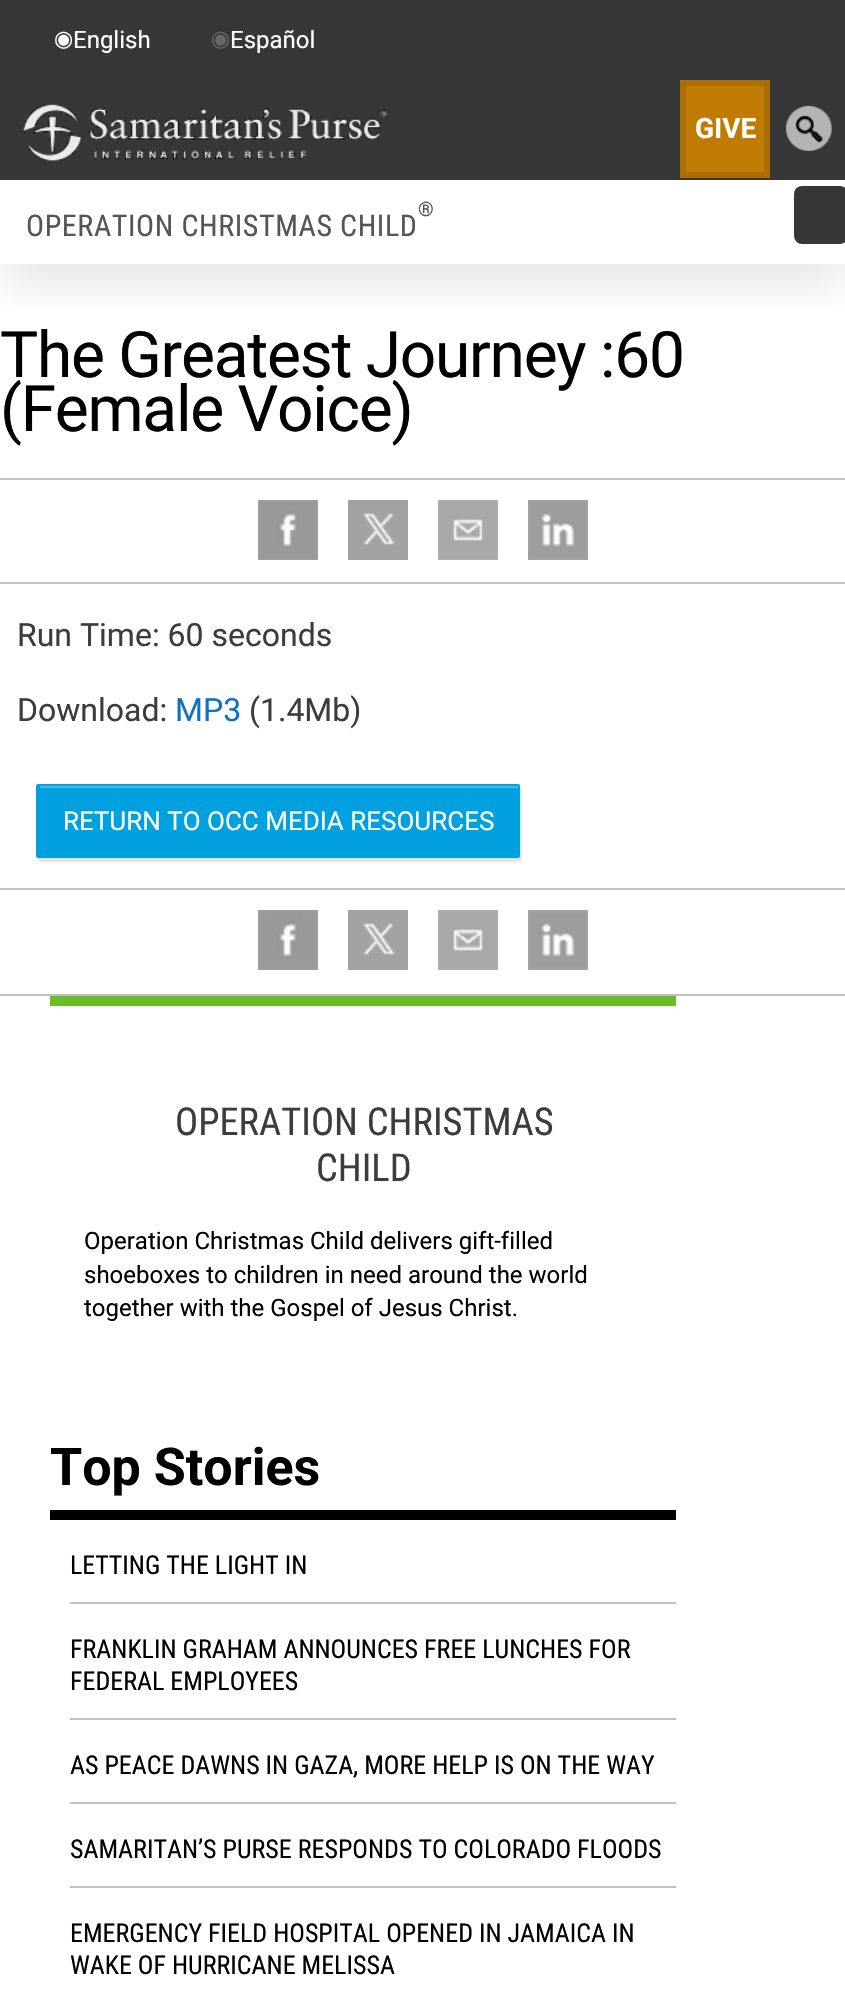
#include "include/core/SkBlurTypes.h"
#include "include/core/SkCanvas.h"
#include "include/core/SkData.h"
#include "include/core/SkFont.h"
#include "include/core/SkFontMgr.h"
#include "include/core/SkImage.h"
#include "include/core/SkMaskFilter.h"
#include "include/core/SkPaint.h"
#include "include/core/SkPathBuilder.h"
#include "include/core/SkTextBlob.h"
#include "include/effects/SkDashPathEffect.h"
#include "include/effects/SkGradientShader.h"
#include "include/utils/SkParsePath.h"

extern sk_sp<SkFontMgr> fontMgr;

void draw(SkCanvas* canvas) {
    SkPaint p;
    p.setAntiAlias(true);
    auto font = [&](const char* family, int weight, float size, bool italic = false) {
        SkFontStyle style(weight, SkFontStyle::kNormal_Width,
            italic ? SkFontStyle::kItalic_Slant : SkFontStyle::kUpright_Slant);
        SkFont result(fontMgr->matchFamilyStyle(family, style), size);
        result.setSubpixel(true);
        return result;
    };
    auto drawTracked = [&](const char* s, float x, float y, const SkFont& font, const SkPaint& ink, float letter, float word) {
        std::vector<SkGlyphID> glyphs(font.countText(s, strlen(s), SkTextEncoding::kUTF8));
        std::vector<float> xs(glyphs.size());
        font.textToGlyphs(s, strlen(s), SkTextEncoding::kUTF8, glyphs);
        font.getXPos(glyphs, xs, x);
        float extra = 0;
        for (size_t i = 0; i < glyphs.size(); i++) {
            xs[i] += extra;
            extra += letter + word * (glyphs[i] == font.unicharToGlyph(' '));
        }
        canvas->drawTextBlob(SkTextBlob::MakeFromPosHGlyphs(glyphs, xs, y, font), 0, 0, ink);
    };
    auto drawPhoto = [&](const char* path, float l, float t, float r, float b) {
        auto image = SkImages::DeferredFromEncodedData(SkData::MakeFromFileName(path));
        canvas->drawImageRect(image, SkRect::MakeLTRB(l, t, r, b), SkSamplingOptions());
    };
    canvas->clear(0xFFFFFFFF);
    canvas->save();
    canvas->clipRect(SkRect::MakeLTRB(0, 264, 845, 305));
    p.setColor(0x1A000000);
    p.setMaskFilter(SkMaskFilter::MakeBlur(kNormal_SkBlurStyle, 25));
    canvas->drawRect(SkRect::MakeLTRB(0, 200, 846, 284), p);
    p.setMaskFilter(nullptr);
    canvas->restore();
    p.setColor(0xFF373737);
    canvas->drawRect(SkRect::MakeLTRB(0, 0, 845, 180), p);
    auto font1 = font("DejaVu Sans", 400, 22);
    p.setColor(0xFFFFFFFF);
    canvas->drawString("◉", 54, 46, font1, p);
    auto font2 = font("Roboto", 400, 24);
    canvas->drawString("English", 73, 48, font2, p);
    p.setColor(0xFF696969);
    canvas->drawString("◉", 211, 46, font1, p);
    p.setColor(0xFFFFFFFF);
    canvas->drawString("Español", 230, 48, font2, p);
    drawPhoto("media/1.png", 23, 104, 387, 161);
    p.setColor(0xFFC07B02);
    canvas->drawRect(SkRect::MakeLTRB(683, 83, 767, 175), p);
    p.setStyle(SkPaint::kStroke_Style);
    p.setStrokeWidth(6);
    p.setColor(0xFFAA6E06);
    canvas->drawRect(SkRect::MakeLTRB(683, 83, 767, 175), p);
    auto font3 = font("Roboto", 700, 28);
    p.setStyle(SkPaint::kFill_Style);
    p.setColor(0xFFFFFFFF);
    canvas->drawString("GIVE", 695, 138, font3, p);
    drawPhoto("media/2.png", 786, 106, 832, 151);
    auto font4 = font("Roboto Condensed", 400, 20);
    p.setColor(0xFF555555);
    drawTracked("®", 418, 216, font4, p, 0.6f, 0);
    auto font5 = font("Roboto Condensed", 400, 30);
    drawTracked("OPERATION CHRISTMAS CHILD", 26, 236, font5, p, 0.6f, 0);
    p.setColor(0xFF373737);
    canvas->drawRoundRect(SkRect::MakeLTRB(794, 186, 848, 244), 8, 8, p);
    auto font6 = font("Roboto", 400, 64);
    p.setColor(0xFF000000);
    drawTracked("The Greatest Journey :60", 0, 377, font6, p, -1.25f, 0);
    drawTracked("(Female Voice)", 0, 431, font6, p, -1.25f, 0);
    p.setColor(0xFFC2C2C2);
    canvas->drawRect(SkRect::MakeLTRB(0, 478, 845, 480), p);
    canvas->drawRect(SkRect::MakeLTRB(0, 582, 845, 584), p);
    drawPhoto("media/3.png", 258, 500, 318, 560);
    drawPhoto("media/4.png", 348, 500, 408, 560);
    drawPhoto("media/5.png", 438, 500, 498, 560);
    drawPhoto("media/6.png", 528, 500, 588, 560);
    auto font7 = font("Roboto", 400, 32);
    p.setColor(0xFF3C3C3C);
    canvas->drawString("Run Time: 60 seconds", 17, 646, font7, p);
    canvas->drawString("Download:", 17, 721, font7, p);
    p.setColor(0xFF0D72C7);
    canvas->drawString("MP3", 175, 721, font7, p);
    p.setColor(0xFF3C3C3C);
    canvas->drawString("(1.4Mb)", 249, 721, font7, p);
    p.setColor(0x1A000000);
    p.setMaskFilter(SkMaskFilter::MakeBlur(kNormal_SkBlurStyle, 1));
    canvas->drawRoundRect(SkRect::MakeLTRB(38, 788, 522, 862), 2, 2, p);
    p.setMaskFilter(nullptr);
    p.setColor(0xFF00A1DE);
    canvas->drawRoundRect(SkRect::MakeLTRB(36, 784, 520, 858), 2, 2, p);
    p.setColor(0xFF40B9E6);
    canvas->drawRect(SkRect::MakeLTRB(40, 786, 518, 788), p);
    auto font8 = font("Roboto", 400, 26);
    p.setColor(0xFFFFFFFF);
    canvas->drawString("RETURN TO OCC MEDIA RESOURCES", 63, 830, font8, p);
    p.setColor(0xFFC2C2C2);
    canvas->drawRect(SkRect::MakeLTRB(0, 888, 845, 890), p);
    canvas->drawRect(SkRect::MakeLTRB(0, 994, 845, 996), p);
    drawPhoto("media/3.png", 258, 910, 318, 970);
    drawPhoto("media/4.png", 348, 910, 408, 970);
    drawPhoto("media/5.png", 438, 910, 498, 970);
    drawPhoto("media/6.png", 528, 910, 588, 970);
    p.setColor(0xFF69BE28);
    canvas->drawRect(SkRect::MakeLTRB(50, 996, 676, 1006), p);
    auto font9 = font("Roboto Condensed", 400, 38.5f);
    p.setColor(0xFF3C3C3C);
    canvas->drawString("OPERATION CHRISTMAS", 175, 1135, font9, p);
    canvas->drawString("CHILD", 316, 1181, font9, p);
    p.setColor(0xFF000000);
    {
        const struct { const char* s; float x, y; } items[] = {
            {"Operation Christmas Child delivers gift-filled", 84, 1249},
            {"shoeboxes to children in need around the world", 84, 1283},
            {"together with the Gospel of Jesus Christ.", 84, 1316},
        };
        for (auto [s, x, y] : items) {
            canvas->drawString(s, x, y, font2, p);
        }
    }
    canvas->drawRect(SkRect::MakeLTRB(50, 1510, 676, 1520), p);
    auto font10 = font("Roboto", 700, 52);
    canvas->drawString("Top Stories", 50, 1485, font10, p);
    p.setColor(0xFFC2C2C2);
    canvas->drawRect(SkRect::MakeLTRB(70, 1602, 676, 1604), p);
    auto font11 = font("Roboto Condensed", 400, 26);
    p.setColor(0xFF000000);
    canvas->drawString("LETTING THE LIGHT IN", 70, 1574, font11, p);
    p.setColor(0xFFC2C2C2);
    canvas->drawRect(SkRect::MakeLTRB(70, 1718, 676, 1720), p);
    p.setColor(0xFF000000);
    canvas->drawString("FRANKLIN GRAHAM ANNOUNCES FREE LUNCHES FOR", 70, 1658, font11, p);
    canvas->drawString("FEDERAL EMPLOYEES", 70, 1690, font11, p);
    p.setColor(0xFFC2C2C2);
    canvas->drawRect(SkRect::MakeLTRB(70, 1802, 676, 1804), p);
    p.setColor(0xFF000000);
    canvas->drawString("AS PEACE DAWNS IN GAZA, MORE HELP IS ON THE WAY", 70, 1774, font11, p);
    p.setColor(0xFFC2C2C2);
    canvas->drawRect(SkRect::MakeLTRB(70, 1886, 676, 1888), p);
    p.setColor(0xFF000000);
    {
        const struct { const char* s; float x, y; } items[] = {
            {"SAMARITAN’S PURSE RESPONDS TO COLORADO FLOODS", 70, 1858},
            {"EMERGENCY FIELD HOSPITAL OPENED IN JAMAICA IN", 70, 1942},
            {"WAKE OF HURRICANE MELISSA", 70, 1974},
        };
        for (auto [s, x, y] : items) {
            canvas->drawString(s, x, y, font11, p);
        }
    }
}
